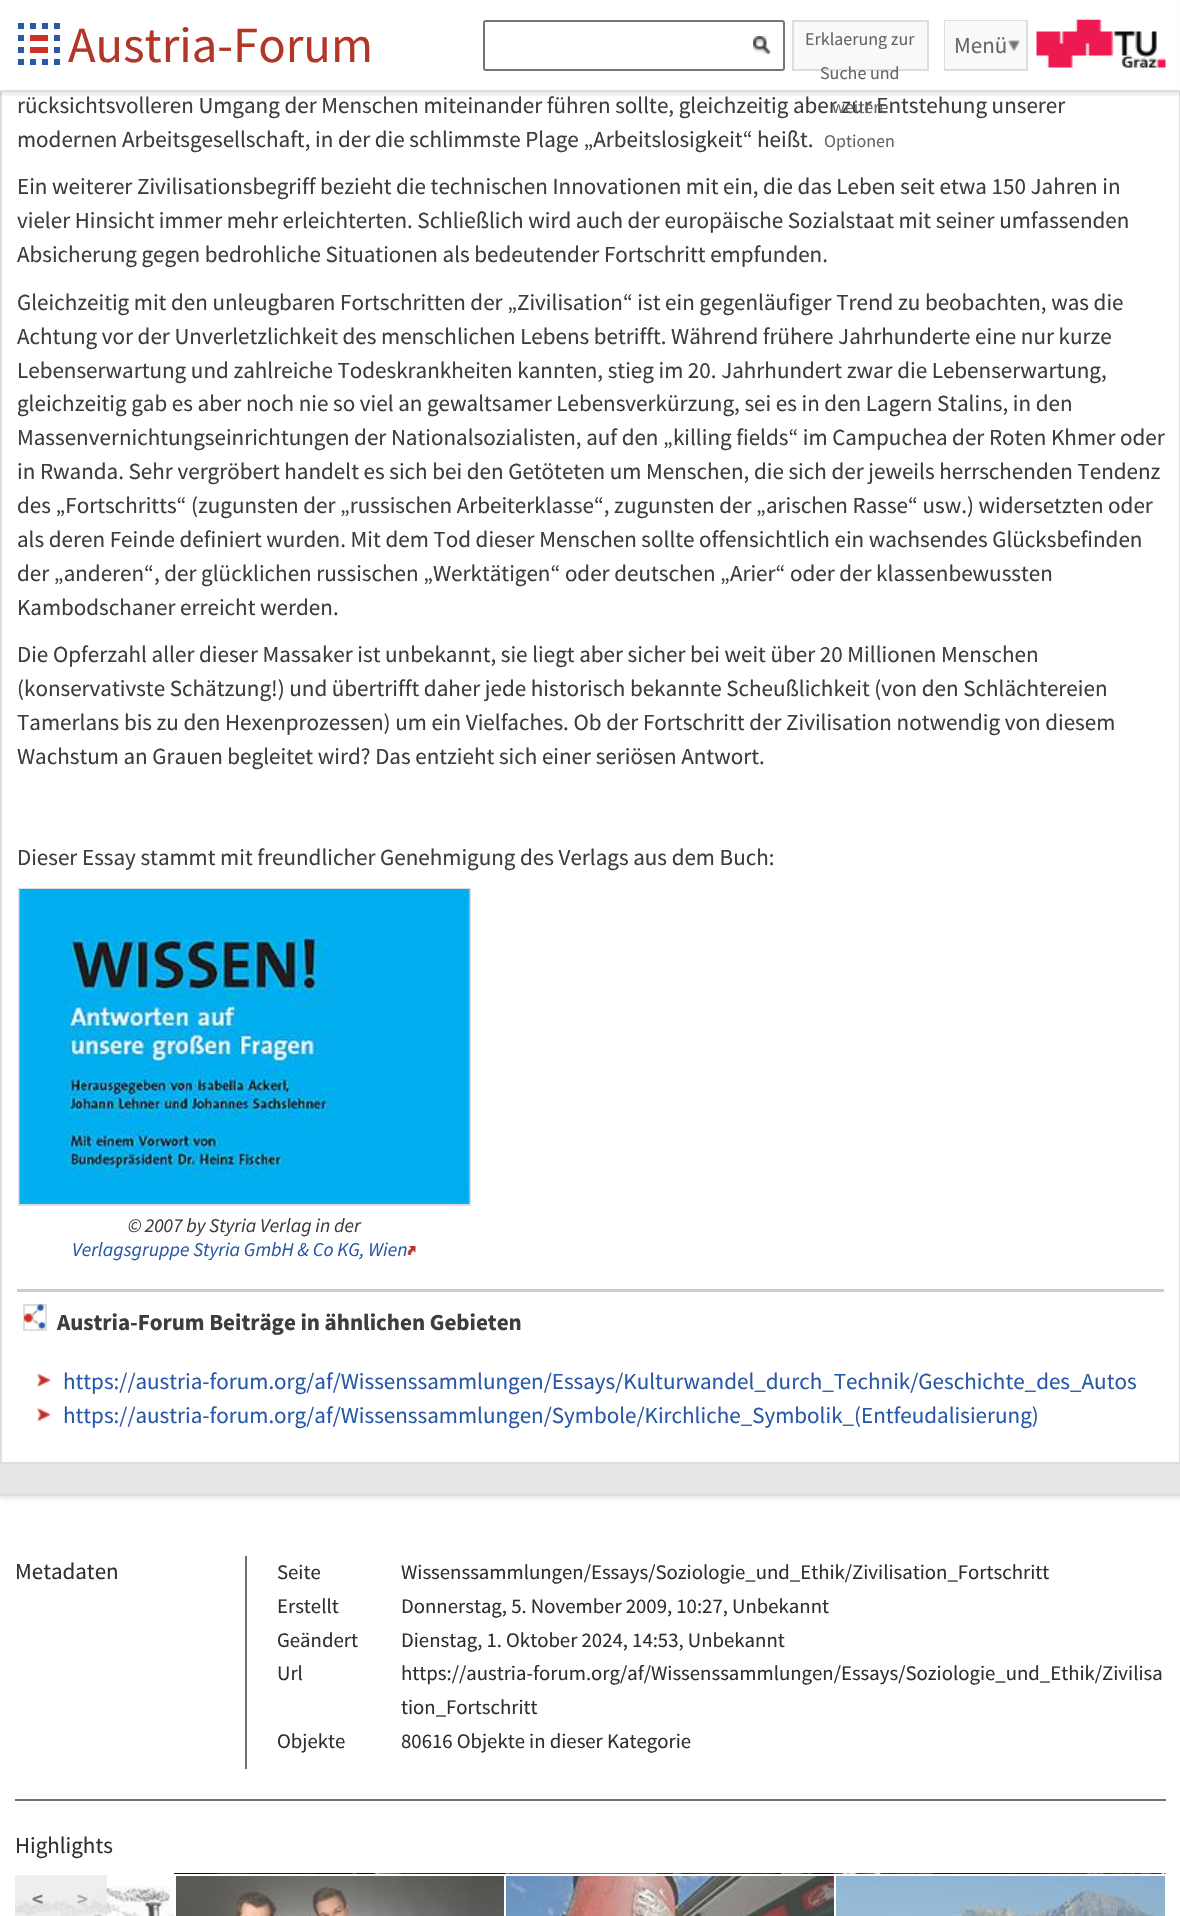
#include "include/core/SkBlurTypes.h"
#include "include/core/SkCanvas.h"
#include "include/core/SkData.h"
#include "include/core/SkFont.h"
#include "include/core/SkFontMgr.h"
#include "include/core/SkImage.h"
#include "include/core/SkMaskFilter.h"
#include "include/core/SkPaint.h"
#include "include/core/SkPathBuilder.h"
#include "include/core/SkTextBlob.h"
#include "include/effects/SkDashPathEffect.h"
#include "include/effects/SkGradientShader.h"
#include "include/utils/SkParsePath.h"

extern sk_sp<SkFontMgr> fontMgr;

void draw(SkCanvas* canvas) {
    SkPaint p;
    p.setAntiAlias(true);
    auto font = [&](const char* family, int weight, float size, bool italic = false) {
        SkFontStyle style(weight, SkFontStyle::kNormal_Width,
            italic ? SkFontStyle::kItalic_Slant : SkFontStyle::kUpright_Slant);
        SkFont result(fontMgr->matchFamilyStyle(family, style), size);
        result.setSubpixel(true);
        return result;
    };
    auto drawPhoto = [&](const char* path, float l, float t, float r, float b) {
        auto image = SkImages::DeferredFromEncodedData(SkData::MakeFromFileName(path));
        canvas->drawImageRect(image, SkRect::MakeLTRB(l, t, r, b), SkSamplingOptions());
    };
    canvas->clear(0xFFFFFFFF);
    p.setColor(0x26000000);
    p.setMaskFilter(SkMaskFilter::MakeBlur(kNormal_SkBlurStyle, 3));
    canvas->drawRect(SkRect::MakeLTRB(-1, -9, 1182, 1497), p);
    p.setMaskFilter(nullptr);
    p.setColor(0xFFFFFFFF);
    canvas->drawRect(SkRect::MakeLTRB(1, -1, 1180, 1463), p);
    p.setStyle(SkPaint::kStroke_Style);
    p.setStrokeWidth(2);
    p.setColor(0xFFDDDDDD);
    canvas->drawRect(SkRect::MakeLTRB(1, -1, 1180, 1463), p);
    canvas->save();
    canvas->clipRect(SkRect::MakeLTRB(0, 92, 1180, 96));
    p.setStyle(SkPaint::kFill_Style);
    p.setColor(0x26000000);
    p.setMaskFilter(SkMaskFilter::MakeBlur(kNormal_SkBlurStyle, 3));
    canvas->drawRect(SkRect::MakeLTRB(-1, -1, 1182, 93), p);
    p.setMaskFilter(nullptr);
    canvas->restore();
    p.setColor(0xF2FFFFFF);
    canvas->drawRect(SkRect::MakeLTRB(0, 0, 1180, 90), p);
    p.setColor(0xFFDDDDDD);
    canvas->drawRect(SkRect::MakeLTRB(0, 90, 1180, 92), p);
    drawPhoto("media/1.png", 18, 23, 60, 65);
    auto font1 = font("Source Sans Pro", 400, 50.75f);
    p.setColor(0xFFB23729);
    canvas->drawString("Austria-Forum", 68, 62, font1, p);
    p.setStyle(SkPaint::kStroke_Style);
    p.setColor(0xFF767676);
    canvas->drawRoundRect(SkRect::MakeLTRB(484, 21, 784, 70), 2, 2, p);
    drawPhoto("media/2.png", 753, 36, 771, 54);
    p.setStyle(SkPaint::kFill_Style);
    p.setColor(0xFFF9F9F9);
    canvas->drawRect(SkRect::MakeLTRB(793, 21, 928, 70), p);
    p.setStyle(SkPaint::kStroke_Style);
    p.setColor(0xFFDDDDDD);
    canvas->drawRect(SkRect::MakeLTRB(793, 21, 928, 70), p);
    auto font2 = font("Source Sans Pro", 400, 18);
    p.setStyle(SkPaint::kFill_Style);
    p.setColor(0xFF666666);
    canvas->drawString("Erklaerung zur", 805, 45, font2, p);
    canvas->drawString("Suche und", 820, 79, font2, p);
    auto font3 = font("Source Sans Pro", 400, 23.05f);
    p.setColor(0xFF3D3D3D);
    canvas->drawString("rücksichtsvolleren Umgang der Menschen miteinander führen sollte, gleichzeitig aber zur Entstehung unserer", 17, 113, font3, p);
    p.setColor(0xFF666666);
    canvas->drawString("weitere", 832, 113, font2, p);
    canvas->drawString("Optionen", 824, 147, font2, p);
    p.setColor(0xFFF9F9F9);
    canvas->drawRect(SkRect::MakeLTRB(946, 68, 1026, 69), p);
    p.setStyle(SkPaint::kStroke_Style);
    p.setColor(0xFFDDDDDD);
    canvas->drawRect(SkRect::MakeLTRB(945, 21, 1027, 70), p);
    p.setStyle(SkPaint::kFill_Style);
    p.setColor(0xFFF9F9F9);
    canvas->drawRect(SkRect::MakeLTRB(945, 21, 1026, 68), p);
    drawPhoto("media/3.png", 1007, 40, 1021, 52);
    p.setColor(0xFF666666);
    canvas->drawString("Menü", 954, 53, font3, p);
    drawPhoto("media/4.png", 1036, 19, 1166, 68);
    p.setColor(0xFFE5E5E5);
    canvas->drawRect(SkRect::MakeLTRB(0, 1464, 1180, 1494), p);
    p.setColor(0xFFDDDDDD);
    canvas->drawRect(SkRect::MakeLTRB(0, 1494, 1180, 1496), p);
    p.setColor(0xFF3D3D3D);
    {
        const struct { const char* s; float x, y; } items[] = {
            {"modernen Arbeitsgesellschaft, in der die schlimmste Plage „Arbeitslosigkeit“ heißt.", 17, 147},
            {"Ein weiterer Zivilisationsbegriff bezieht die technischen Innovationen mit ein, die das Leben seit etwa 150 Jahren in", 17, 194},
            {"vieler Hinsicht immer mehr erleichterten. Schließlich wird auch der europäische Sozialstaat mit seiner umfassenden", 17, 228},
            {"Absicherung gegen bedrohliche Situationen als bedeutender Fortschritt empfunden.", 17, 262},
            {"Gleichzeitig mit den unleugbaren Fortschritten der „Zivilisation“ ist ein gegenläufiger Trend zu beobachten, was die", 17, 310},
            {"Achtung vor der Unverletzlichkeit des menschlichen Lebens betrifft. Während frühere Jahrhunderte eine nur kurze", 17, 344},
            {"Lebenserwartung und zahlreiche Todeskrankheiten kannten, stieg im 20. Jahrhundert zwar die Lebenserwartung,", 17, 378},
            {"gleichzeitig gab es aber noch nie so viel an gewaltsamer Lebensverkürzung, sei es in den Lagern Stalins, in den", 17, 411},
            {"Massenvernichtungseinrichtungen der Nationalsozialisten, auf den „killing fields“ im Campuchea der Roten Khmer oder", 17, 445},
            {"in Rwanda. Sehr vergröbert handelt es sich bei den Getöteten um Menschen, die sich der jeweils herrschenden Tendenz", 17, 479},
            {"des „Fortschritts“ (zugunsten der „russischen Arbeiterklasse“, zugunsten der „arischen Rasse“ usw.) widersetzten oder", 17, 513},
            {"als deren Feinde definiert wurden. Mit dem Tod dieser Menschen sollte offensichtlich ein wachsendes Glücksbefinden", 17, 547},
            {"der „anderen“, der glücklichen russischen „Werktätigen“ oder deutschen „Arier“ oder der klassenbewussten", 17, 581},
            {"Kambodschaner erreicht werden.", 17, 615},
            {"Die Opferzahl aller dieser Massaker ist unbekannt, sie liegt aber sicher bei weit über 20 Millionen Menschen", 17, 662},
            {"(konservativste Schätzung!) und übertrifft daher jede historisch bekannte Scheußlichkeit (von den Schlächtereien", 17, 696},
            {"Tamerlans bis zu den Hexenprozessen) um ein Vielfaches. Ob der Fortschritt der Zivilisation notwendig von diesem", 17, 730},
            {"Wachstum an Grauen begleitet wird? Das entzieht sich einer seriösen Antwort.", 17, 764},
            {"Dieser Essay stammt mit freundlicher Genehmigung des Verlags aus dem Buch:", 17, 865},
        };
        for (auto [s, x, y] : items) {
            canvas->drawString(s, x, y, font3, p);
        }
    }
    p.setStyle(SkPaint::kStroke_Style);
    p.setColor(0xFFDDDDDD);
    canvas->drawRect(SkRect::MakeLTRB(19, 889, 470, 1205), p);
    drawPhoto("media/5.png", 19, 889, 470, 1204);
    auto font4 = font("Source Sans Pro", 400, 19.6f, true);
    p.setStyle(SkPaint::kFill_Style);
    p.setColor(0xFF3D3D3D);
    canvas->drawString("© 2007 by Styria Verlag in der", 128, 1232, font4, p);
    p.setColor(0xFF2858A8);
    canvas->drawString("Verlagsgruppe Styria GmbH & Co KG, Wien", 72, 1256, font4, p);
    drawPhoto("media/6.png", 407, 1246, 416, 1255);
    p.setColor(0xFFCCCCCC);
    canvas->drawRect(SkRect::MakeLTRB(17, 1289, 1164, 1292), p);
    p.setStyle(SkPaint::kStroke_Style);
    p.setColor(0xFFDDDDDD);
    canvas->drawRect(SkRect::MakeLTRB(24, 1305, 46, 1330), p);
    drawPhoto("media/7.png", 24, 1304, 45, 1329);
    auto font5 = font("Source Sans Pro", 700, 23.05f);
    p.setStyle(SkPaint::kFill_Style);
    p.setColor(0xFF3D3D3D);
    canvas->drawString("Austria-Forum Beiträge in ähnlichen Gebieten", 57, 1330, font5, p);
    drawPhoto("media/8.png", 37, 1373, 52, 1388);
    p.setColor(0xFF2858A8);
    canvas->drawString("https://austria-forum.org/af/Wissenssammlungen/Essays/Kulturwandel_durch_Technik/Geschichte_des_Autos", 63, 1389, font3, p);
    drawPhoto("media/9.png", 37, 1407, 52, 1422);
    canvas->drawString("https://austria-forum.org/af/Wissenssammlungen/Symbole/Kirchliche_Symbolik_(Entfeudalisierung)", 63, 1423, font3, p);
    auto font6 = font("Source Sans Pro", 400, 23);
    p.setColor(0xFF303030);
    canvas->drawString("Metadaten", 15, 1579, font6, p);
    p.setColor(0xFF707070);
    canvas->drawRect(SkRect::MakeLTRB(245, 1556, 247, 1769), p);
    auto font7 = font("Source Sans Pro", 400, 20.75f);
    p.setColor(0xFF303030);
    {
        const struct { const char* s; float x, y; } items[] = {
            {"Seite", 277, 1579},
            {"Wissenssammlungen/Essays/Soziologie_und_Ethik/Zivilisation_Fortschritt", 401, 1579},
            {"Erstellt", 277, 1613},
            {"Donnerstag, 5. November 2009, 10:27, Unbekannt", 401, 1613},
            {"Geändert", 277, 1647},
            {"Dienstag, 1. Oktober 2024, 14:53, Unbekannt", 401, 1647},
            {"Url", 277, 1680},
            {"https://austria-forum.org/af/Wissenssammlungen/Essays/Soziologie_und_Ethik/Zivilisa", 401, 1680},
            {"tion_Fortschritt", 401, 1714},
            {"Objekte", 277, 1748},
            {"80616 Objekte in dieser Kategorie", 401, 1748},
        };
        for (auto [s, x, y] : items) {
            canvas->drawString(s, x, y, font7, p);
        }
    }
    p.setColor(0xFF707070);
    canvas->drawRect(SkRect::MakeLTRB(15, 1799, 1166, 1801), p);
    p.setColor(0xFF303030);
    canvas->drawString("Highlights", 15, 1853, font6, p);
    drawPhoto("media/10.png", 15, 1886, 174, 1916);
    p.setColor(0x40FFFFFF);
    canvas->drawRect(SkRect::MakeLTRB(15, 1887, 174, 1916), p);
    drawPhoto("media/11.png", 174, 1873, 504, 1916);
    p.setStyle(SkPaint::kStroke_Style);
    p.setColor(0xFFFFFFFF);
    canvas->drawRect(SkRect::MakeLTRB(175, 1875, 506, 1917), p);
    p.setStyle(SkPaint::kFill_Style);
    p.setColor(0x40FFFFFF);
    canvas->drawRect(SkRect::MakeLTRB(176, 1876, 504, 1916), p);
    drawPhoto("media/12.png", 504, 1873, 834, 1916);
    p.setStyle(SkPaint::kStroke_Style);
    p.setColor(0xFFFFFFFF);
    canvas->drawRect(SkRect::MakeLTRB(505, 1875, 836, 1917), p);
    p.setStyle(SkPaint::kFill_Style);
    p.setColor(0x40FFFFFF);
    canvas->drawRect(SkRect::MakeLTRB(506, 1876, 834, 1916), p);
    drawPhoto("media/13.png", 834, 1873, 1166, 1916);
    canvas->save();
    canvas->clipRect(SkRect::MakeLTRB(15, 1800, 1166, 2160));
    p.setStyle(SkPaint::kStroke_Style);
    p.setColor(0xFFFFFFFF);
    canvas->drawRect(SkRect::MakeLTRB(835, 1875, 1166, 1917), p);
    canvas->restore();
    p.setStyle(SkPaint::kFill_Style);
    p.setColor(0x40FFFFFF);
    canvas->drawRect(SkRect::MakeLTRB(836, 1876, 1165, 1916), p);
    p.setColor(0xA6E5E5E5);
    canvas->drawRect(SkRect::MakeLTRB(15, 1875, 107, 1916), p);
    p.setColor(0x1FFFFFFF);
    canvas->drawPath(SkPathBuilder().moveTo(60, 1875).lineTo(60, 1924).lineTo(58, 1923).lineTo(58, 1875).close().detach(), p);
    auto font8 = font("Source Sans Pro", 700, 20.75f);
    p.setColor(0xFF7D7D7D);
    canvas->drawString("<", 32, 1906, font8, p);
    p.setColor(0xFFB0B0B0);
    canvas->drawString(">", 77, 1906, font8, p);
}
